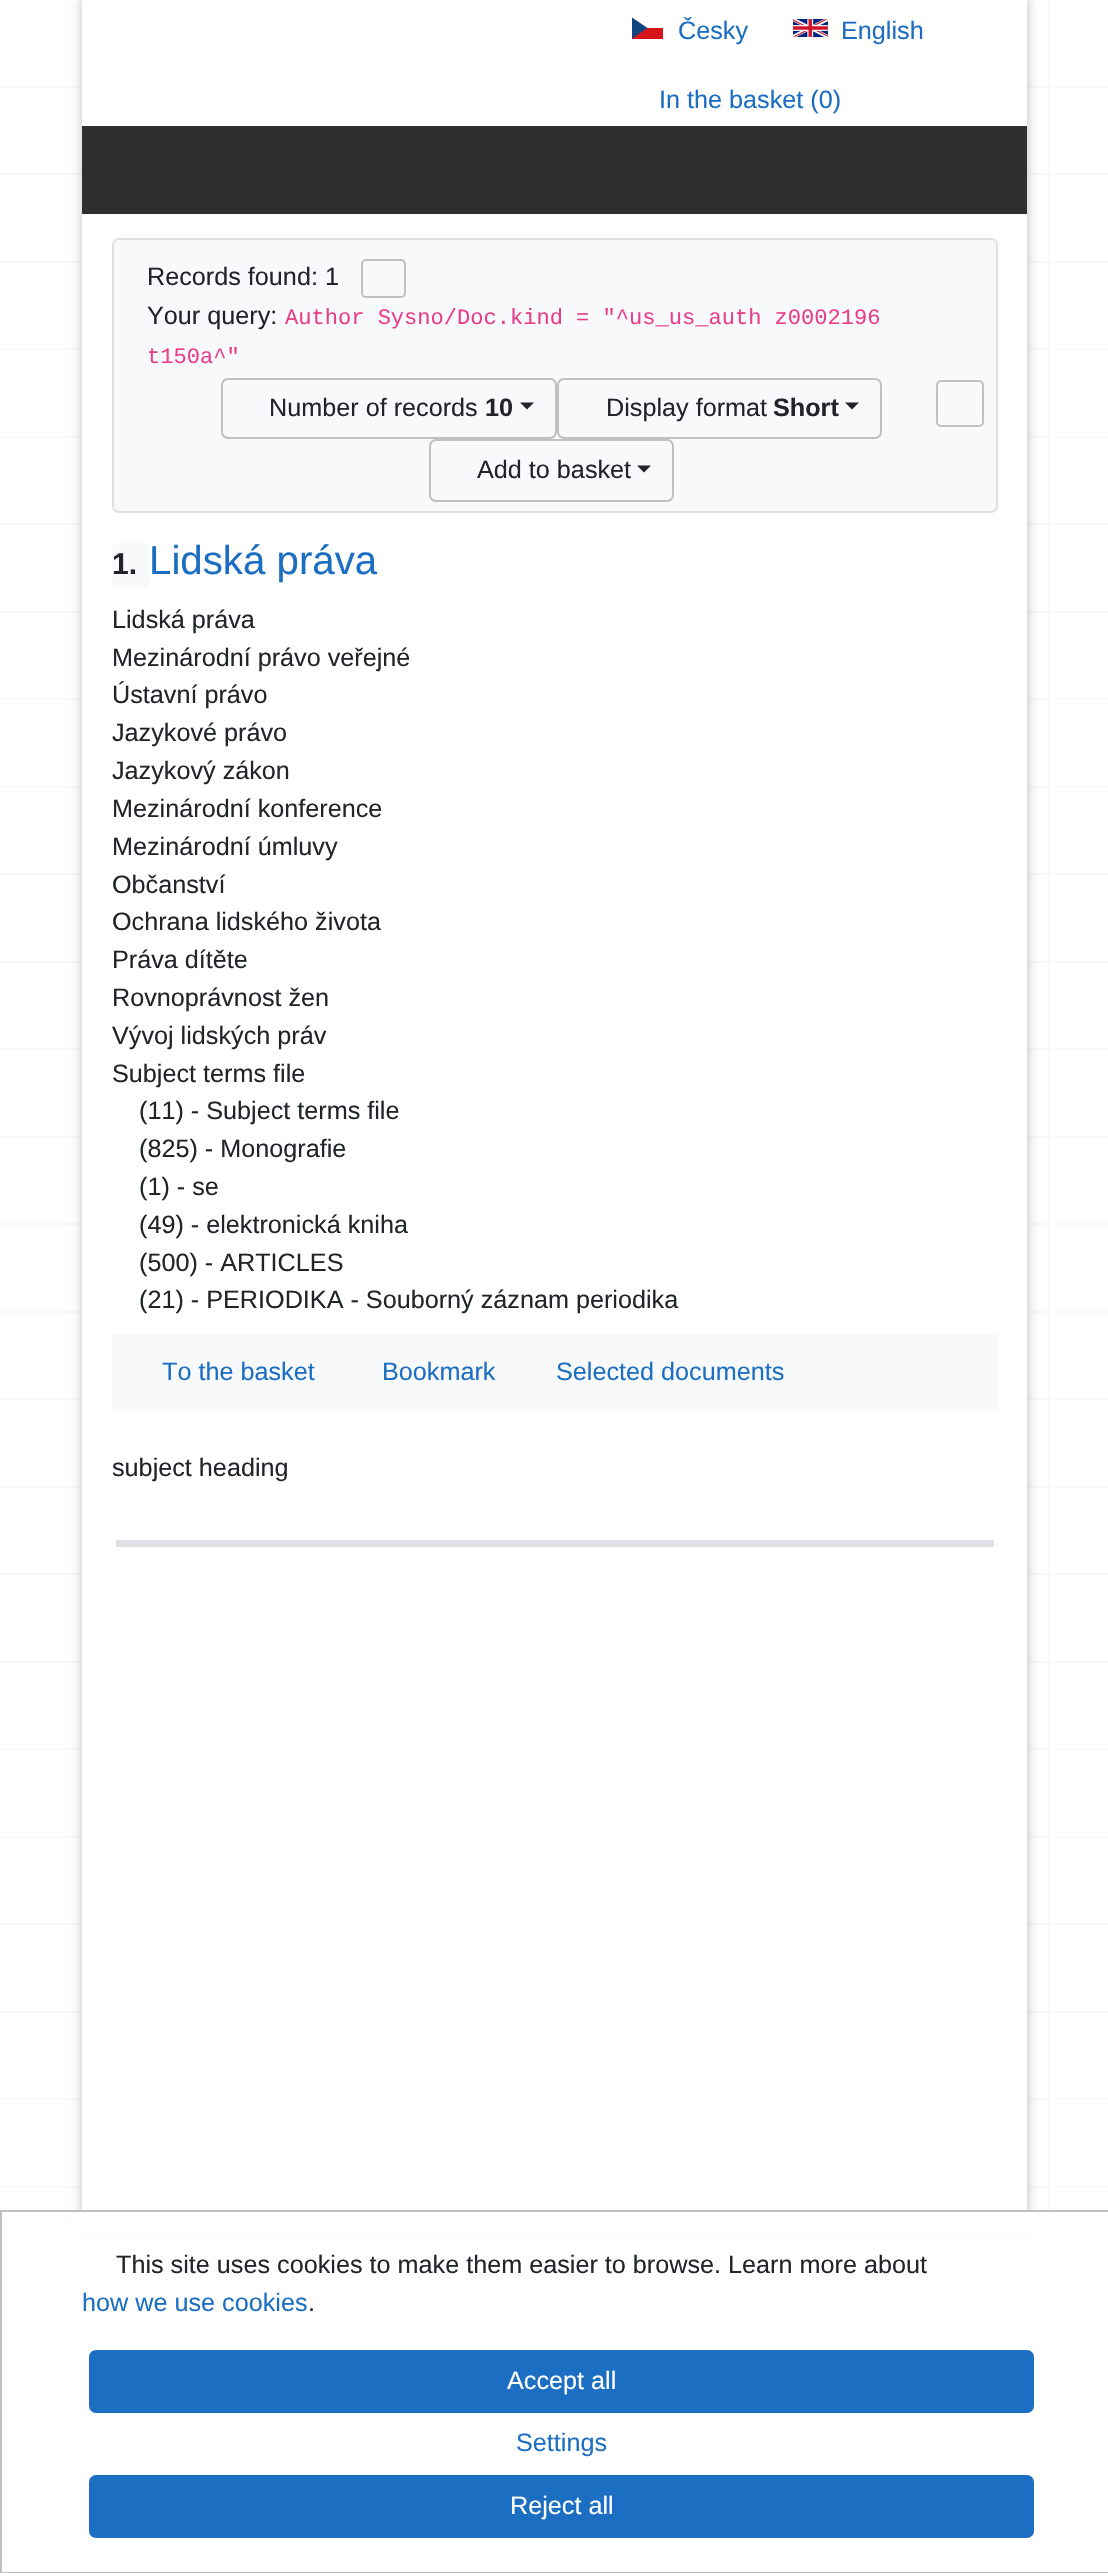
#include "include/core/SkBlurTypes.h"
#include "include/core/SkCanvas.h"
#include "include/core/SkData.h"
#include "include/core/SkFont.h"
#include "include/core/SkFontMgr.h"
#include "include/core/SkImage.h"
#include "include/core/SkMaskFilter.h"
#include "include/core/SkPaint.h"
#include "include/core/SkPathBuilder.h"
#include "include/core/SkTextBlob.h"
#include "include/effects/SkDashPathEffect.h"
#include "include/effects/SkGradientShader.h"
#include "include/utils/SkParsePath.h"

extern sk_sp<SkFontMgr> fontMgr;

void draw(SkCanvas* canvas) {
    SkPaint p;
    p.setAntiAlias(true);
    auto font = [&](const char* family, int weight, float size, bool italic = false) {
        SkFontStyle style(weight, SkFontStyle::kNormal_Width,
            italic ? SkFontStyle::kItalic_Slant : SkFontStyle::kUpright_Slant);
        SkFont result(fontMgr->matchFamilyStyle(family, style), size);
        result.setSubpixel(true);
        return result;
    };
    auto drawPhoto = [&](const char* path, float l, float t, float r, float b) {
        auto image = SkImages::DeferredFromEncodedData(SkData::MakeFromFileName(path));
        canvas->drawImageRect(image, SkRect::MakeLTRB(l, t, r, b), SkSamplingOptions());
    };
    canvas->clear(0xFFFFFFFF);
    p.setColor(0xFFF8F9FA);
    canvas->drawRect(SkRect::MakeLTRB(1048, 0, 1050, 2210), p);
    drawPhoto("media/1.png", 0, 86, 1108, 2188);
    p.setColor(0x33000000);
    p.setMaskFilter(SkMaskFilter::MakeBlur(kNormal_SkBlurStyle, 5));
    canvas->drawRect(SkRect::MakeLTRB(81, -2, 1029, 2226), p);
    p.setMaskFilter(nullptr);
    p.setColor(0xFFFFFFFF);
    canvas->drawRect(SkRect::MakeLTRB(82, 0, 1027, 2210), p);
    p.setColor(0xFFD7141A);
    canvas->drawRect(SkRect::MakeLTRB(632, 28, 663, 39), p);
    p.setColor(0xFF11457E);
    canvas->drawPath(SkPathBuilder().moveTo(647.5f, 28).lineTo(632, 17.5f).lineTo(632, 38.5f).close().detach(), p);
    auto font1 = font("Liberation Sans", 400, 25.2f);
    p.setColor(0xFF1B6EC2);
    canvas->drawString("Česky", 678, 39, font1, p);
    drawPhoto("media/2.png", 793, 19, 828, 37);
    canvas->drawString("English", 841, 39, font1, p);
    canvas->drawString("In the basket (0)", 659, 108, font1, p);
    p.setColor(0xFF2E2E2E);
    canvas->drawRect(SkRect::MakeLTRB(82, 126, 1027, 214), p);
    p.setColor(0xFFF8F9FA);
    canvas->drawRoundRect(SkRect::MakeLTRB(112, 238, 998, 513), 7, 7, p);
    p.setStyle(SkPaint::kStroke_Style);
    p.setStrokeWidth(2);
    p.setColor(0x1F333333);
    canvas->drawRoundRect(SkRect::MakeLTRB(113, 239, 997, 512), 6, 6, p);
    p.setStyle(SkPaint::kFill_Style);
    p.setColor(0xFF212529);
    canvas->drawString("Records found: 1", 147, 285, font1, p);
    p.setStyle(SkPaint::kStroke_Style);
    p.setColor(0xFFC0C0C0);
    canvas->drawRoundRect(SkRect::MakeLTRB(362, 260, 405, 297), 4, 4, p);
    p.setStyle(SkPaint::kFill_Style);
    p.setColor(0xFF212529);
    canvas->drawString("Your query:", 147, 324, font1, p);
    auto font2 = font("Liberation Mono", 400, 22.05f);
    p.setColor(0xFFE83E8C);
    canvas->drawString("Author Sysno/Doc.kind = \"^us_us_auth z0002196", 285, 324, font2, p);
    canvas->drawString("t150a^\"", 147, 363, font2, p);
    p.setStyle(SkPaint::kStroke_Style);
    p.setColor(0xFFC0C0C0);
    canvas->drawRoundRect(SkRect::MakeLTRB(222, 379, 556, 438), 6, 6, p);
    p.setStyle(SkPaint::kFill_Style);
    p.setColor(0xFF212529);
    canvas->drawString("Number of records", 269, 416, font1, p);
    auto font3 = font("Liberation Sans", 700, 25.2f);
    canvas->drawString("10", 485, 416, font3, p);
    canvas->drawPath(SkPathBuilder().moveTo(520, 402.5f).lineTo(534, 402.5f).lineTo(527, 409.5f).close().detach(), p);
    p.setStyle(SkPaint::kStroke_Style);
    p.setColor(0xFFC0C0C0);
    canvas->drawRoundRect(SkRect::MakeLTRB(558, 379, 881, 438), 6, 6, p);
    p.setStyle(SkPaint::kFill_Style);
    p.setColor(0xFF212529);
    canvas->drawString("Display format", 606, 416, font1, p);
    canvas->drawString("Short", 773, 416, font3, p);
    canvas->drawPath(SkPathBuilder().moveTo(845, 402.5f).lineTo(859, 402.5f).lineTo(852, 409.5f).close().detach(), p);
    p.setStyle(SkPaint::kStroke_Style);
    p.setColor(0xFFC0C0C0);
    canvas->drawRoundRect(SkRect::MakeLTRB(430, 440, 673, 501), 6, 6, p);
    p.setStyle(SkPaint::kFill_Style);
    p.setColor(0xFF212529);
    canvas->drawString("Add to basket", 477, 478, font1, p);
    canvas->drawPath(SkPathBuilder().moveTo(637, 465.5f).lineTo(651, 465.5f).lineTo(644, 472.5f).close().detach(), p);
    p.setStyle(SkPaint::kStroke_Style);
    p.setColor(0xFFC0C0C0);
    canvas->drawRoundRect(SkRect::MakeLTRB(937, 381, 983, 426), 4, 4, p);
    p.setStyle(SkPaint::kFill_Style);
    p.setColor(0xFFDEE2E6);
    canvas->drawRect(SkRect::MakeLTRB(116, 1540, 994, 1547), p);
    p.setColor(0xFFF8F9FA);
    canvas->drawRoundRect(SkRect::MakeLTRB(112, 543, 149, 588), 7, 7, p);
    auto font4 = font("Liberation Sans", 700, 30);
    p.setColor(0xFF212529);
    canvas->drawString("1.", 112, 574, font4, p);
    auto font5 = font("Liberation Sans", 400, 40.25f);
    p.setColor(0xFF1B6EC2);
    canvas->drawString("Lidská práva", 149, 574, font5, p);
    p.setColor(0xFF212529);
    {
        const struct { const char* s; float x, y; } items[] = {
            {"Lidská práva", 112, 628},
            {"Mezinárodní právo veřejné", 112, 666},
            {"Ústavní právo", 112, 703},
            {"Jazykové právo", 112, 741},
            {"Jazykový zákon", 112, 779},
            {"Mezinárodní konference", 112, 817},
            {"Mezinárodní úmluvy", 112, 855},
            {"Občanství", 112, 893},
            {"Ochrana lidského života", 112, 930},
            {"Práva dítěte", 112, 968},
            {"Rovnoprávnost žen", 112, 1006},
            {"Vývoj lidských práv", 112, 1044},
            {"Subject terms file", 112, 1082},
            {"(11) - Subject terms file", 139, 1119},
            {"(825) - Monografie", 139, 1157},
            {"(1) - se", 139, 1195},
            {"(49) - elektronická kniha", 139, 1233},
            {"(500) - ARTICLES", 139, 1271},
            {"(21) - PERIODIKA - Souborný záznam periodika", 139, 1308},
        };
        for (auto [s, x, y] : items) {
            canvas->drawString(s, x, y, font1, p);
        }
    }
    p.setColor(0xFFF8F9FA);
    canvas->drawRect(SkRect::MakeLTRB(112, 1334, 998, 1411), p);
    p.setColor(0xFF1B6EC2);
    {
        const struct { const char* s; float x, y; } items[] = {
            {"To the basket", 162, 1380},
            {"Bookmark", 382, 1380},
            {"Selected documents", 556, 1380},
        };
        for (auto [s, x, y] : items) {
            canvas->drawString(s, x, y, font1, p);
        }
    }
    p.setColor(0xFF212529);
    canvas->drawString("subject heading", 112, 1476, font1, p);
    p.setColor(0xFFFFFFFF);
    canvas->drawRect(SkRect::MakeLTRB(73, 2212, 1037, 2234), p);
    p.setStyle(SkPaint::kStroke_Style);
    p.setColor(0xFFC0C0C0);
    canvas->drawRect(SkRect::MakeLTRB(1, 2211, 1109, 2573), p);
    p.setStyle(SkPaint::kFill_Style);
    p.setColor(0xFF212529);
    canvas->drawString("This site uses cookies to make them easier to browse. Learn more about", 116, 2273, font1, p);
    p.setColor(0xFF1B6EC2);
    canvas->drawString("how we use cookies", 82, 2311, font1, p);
    p.setColor(0xFF212529);
    canvas->drawString(".", 308, 2311, font1, p);
    p.setColor(0xFF1B6EC2);
    canvas->drawRoundRect(SkRect::MakeLTRB(90, 2351, 1033, 2412), 6, 6, p);
    p.setStyle(SkPaint::kStroke_Style);
    canvas->drawRoundRect(SkRect::MakeLTRB(90, 2351, 1033, 2412), 6, 6, p);
    p.setStyle(SkPaint::kFill_Style);
    p.setColor(0xFFFFFFFF);
    canvas->drawString("Accept all", 507, 2389, font1, p);
    p.setColor(0xFF1B6EC2);
    canvas->drawString("Settings", 516, 2451, font1, p);
    canvas->drawRoundRect(SkRect::MakeLTRB(90, 2476, 1033, 2537), 6, 6, p);
    p.setStyle(SkPaint::kStroke_Style);
    canvas->drawRoundRect(SkRect::MakeLTRB(90, 2476, 1033, 2537), 6, 6, p);
    p.setStyle(SkPaint::kFill_Style);
    p.setColor(0xFFFFFFFF);
    canvas->drawString("Reject all", 510, 2514, font1, p);
}
